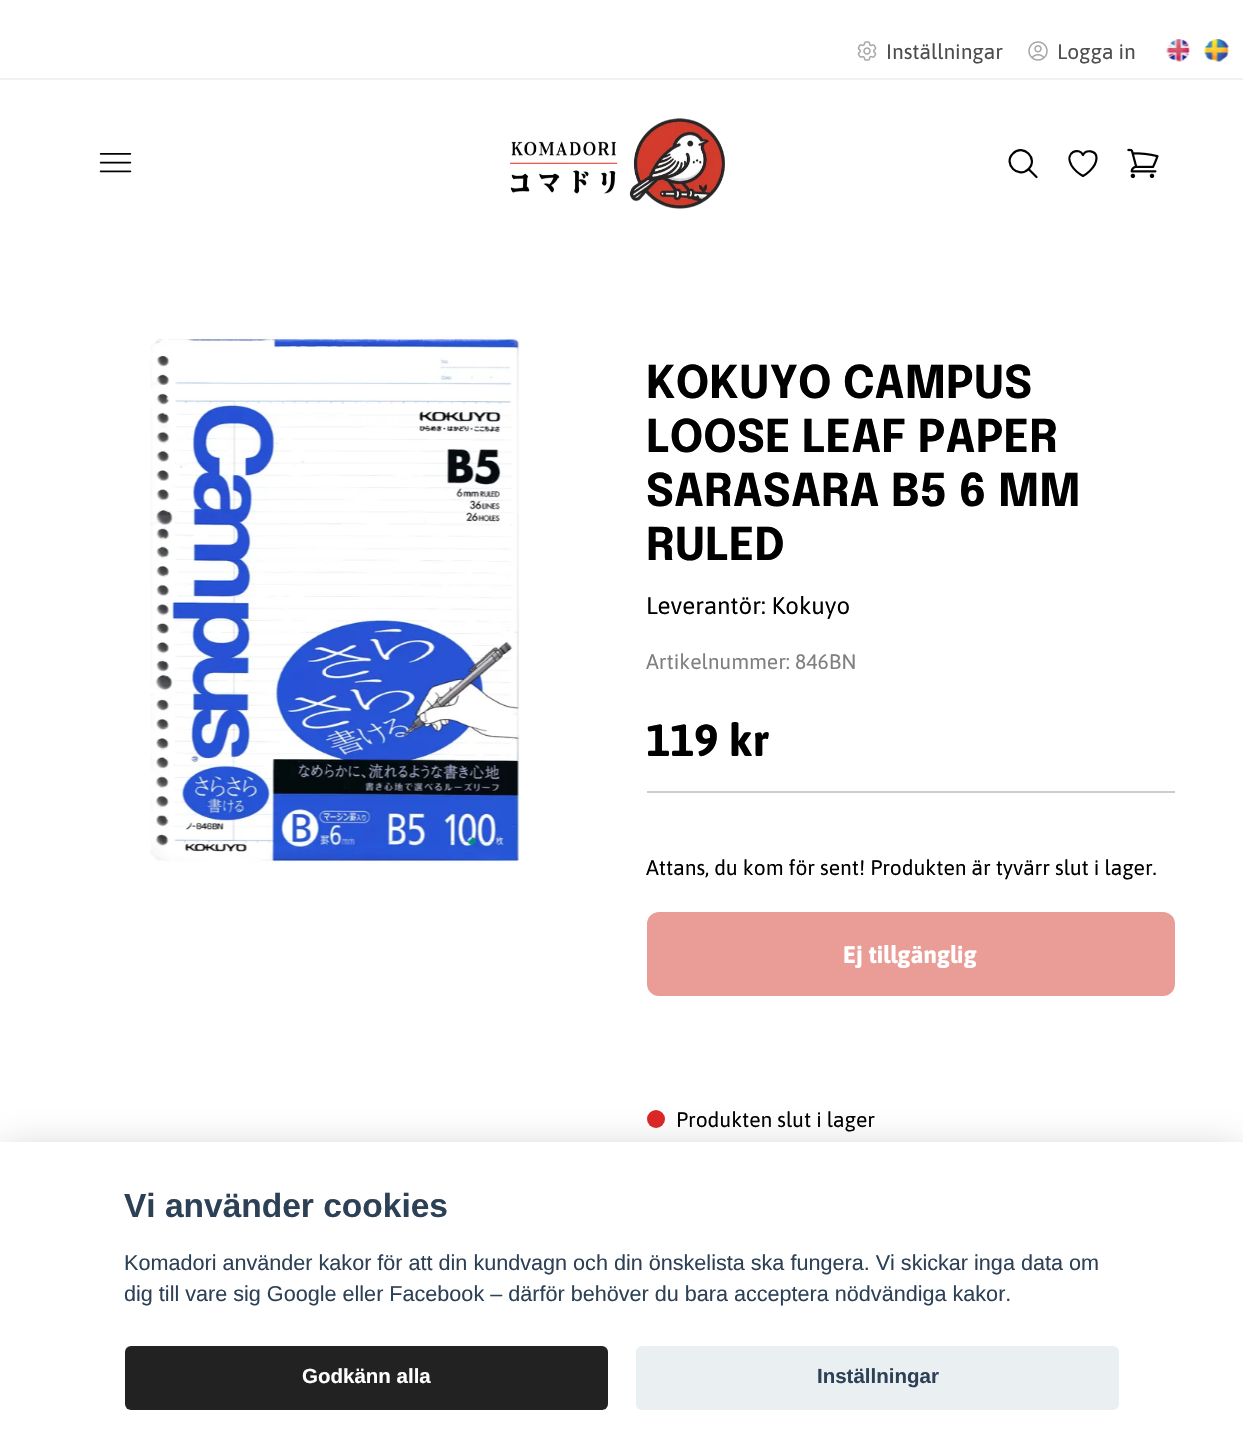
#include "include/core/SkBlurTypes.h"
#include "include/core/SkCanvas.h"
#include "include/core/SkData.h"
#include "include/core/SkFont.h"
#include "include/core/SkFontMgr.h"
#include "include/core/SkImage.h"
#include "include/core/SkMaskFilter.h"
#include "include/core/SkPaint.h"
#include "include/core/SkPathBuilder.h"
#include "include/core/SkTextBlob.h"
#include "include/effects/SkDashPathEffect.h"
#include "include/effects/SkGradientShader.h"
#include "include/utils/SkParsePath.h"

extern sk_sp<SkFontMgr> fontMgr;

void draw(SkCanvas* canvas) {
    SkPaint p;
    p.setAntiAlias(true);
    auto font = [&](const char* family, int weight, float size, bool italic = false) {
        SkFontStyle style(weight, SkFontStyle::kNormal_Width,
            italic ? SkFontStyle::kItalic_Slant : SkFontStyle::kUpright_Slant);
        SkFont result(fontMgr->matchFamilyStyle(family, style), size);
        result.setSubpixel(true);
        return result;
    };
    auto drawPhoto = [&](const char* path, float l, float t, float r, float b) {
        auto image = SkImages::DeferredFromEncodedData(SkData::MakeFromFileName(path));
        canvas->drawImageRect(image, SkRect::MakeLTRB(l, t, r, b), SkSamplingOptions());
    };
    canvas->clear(0xFFFFFFFF);
    drawPhoto("media/1.png", 857, 41, 877, 61);
    auto font1 = font("Asap", 400, 21);
    p.setColor(0xFF4D4D4D);
    canvas->drawString("Inställningar", 886, 59, font1, p);
    drawPhoto("media/2.png", 1028, 41, 1048, 61);
    canvas->drawString("Logga in", 1057, 59, font1, p);
    drawPhoto("media/3.png", 1166, 39, 1190, 62);
    drawPhoto("media/4.png", 1204, 39, 1229, 62);
    p.setColor(0xFFF2F2F2);
    canvas->drawRect(SkRect::MakeLTRB(0, 78, 1243, 80), p);
    drawPhoto("media/5.png", 99, 153, 132, 173);
    drawPhoto("media/6.png", 510, 118, 725, 209);
    p.setStyle(SkPaint::kStroke_Style);
    p.setStrokeWidth(2.2f);
    p.setStrokeCap(SkPaint::kRound_Cap);
    p.setStrokeJoin(SkPaint::kRound_Join);
    p.setColor(0xFF000000);
    canvas->drawPath(SkPathBuilder().moveTo(1036.5f, 177).lineTo(1028.5f, 169).moveTo(1028.5f, 169).cubicTo(1039, 159, 1023, 143, 1013, 153.5f).cubicTo(1002.5f, 163.5f, 1018.5f, 179.5f, 1028.5f, 169).close().detach(), p);
    canvas->drawPath(SkPathBuilder().moveTo(1096.5f, 158).cubicTo(1096.5f, 150.5f, 1086, 149, 1083, 155).cubicTo(1079.5f, 147, 1064, 151.5f, 1071.5f, 165.5f).cubicTo(1074, 169.5f, 1078.5f, 173.5f, 1083, 176).cubicTo(1083, 176, 1096.5f, 168.5f, 1096.5f, 158).close().detach(), p);
    drawPhoto("media/7.png", 1127, 148, 1159, 179);
    drawPhoto("media/8.png", 150, 336, 520, 864);
    auto font2 = font("Epilogue", 700, 45);
    p.setStyle(SkPaint::kFill_Style);
    {
        const struct { const char* s; float x, y; } items[] = {
            {"KOKUYO CAMPUS", 646, 398},
            {"LOOSE LEAF PAPER", 646, 452},
            {"SARASARA B5 6 MM", 646, 506},
            {"RULED", 646, 560},
        };
        for (auto [s, x, y] : items) {
            canvas->drawString(s, x, y, font2, p);
        }
    }
    auto font3 = font("Asap", 400, 24);
    canvas->drawString("Leverantör: Kokuyo", 646, 614, font3, p);
    p.setColor(0xFF808080);
    canvas->drawString("Artikelnummer: 846BN", 646, 669, font1, p);
    auto font4 = font("Asap", 700, 45);
    p.setColor(0xFF000000);
    canvas->drawString("119 kr", 646, 756, font4, p);
    p.setColor(0xFFCCCCCC);
    canvas->drawRect(SkRect::MakeLTRB(647, 791, 1175, 793), p);
    p.setColor(0xFF000000);
    canvas->drawString("Attans, du kom för sent! Produkten är tyvärr slut i lager.", 646, 875, font1, p);
    p.setColor(0xFFE99D96);
    canvas->drawRoundRect(SkRect::MakeLTRB(647, 912, 1175, 996), 12, 12, p);
    auto font5 = font("Asap", 700, 24);
    p.setColor(0xFFFFFFFF);
    canvas->drawString("Ej tillgänglig", 843, 963, font5, p);
    p.setColor(0xFFDC2626);
    canvas->drawCircle(656, 1119, 9, p);
    p.setColor(0xFF000000);
    canvas->drawString("Produkten slut i lager", 676, 1127, font1, p);
    p.setColor(0x47020203);
    p.setMaskFilter(SkMaskFilter::MakeBlur(kNormal_SkBlurStyle, 22.5f));
    canvas->drawRect(SkRect::MakeLTRB(0, 1157, 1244, 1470), p);
    p.setMaskFilter(nullptr);
    p.setColor(0xFFFFFFFF);
    canvas->drawRect(SkRect::MakeLTRB(0, 1142, 1243, 1454), p);
    auto font6 = font("Liberation Sans", 700, 33.5f);
    p.setColor(0xFF2D4156);
    canvas->drawString("Vi använder cookies", 124, 1217, font6, p);
    auto font7 = font("Liberation Sans", 400, 21.6f);
    canvas->drawString("Komadori använder kakor för att din kundvagn och din önskelista ska fungera. Vi skickar inga data om", 124, 1270, font7, p);
    canvas->drawString("dig till vare sig Google eller Facebook – därför behöver du bara acceptera nödvändiga kakor.", 124, 1301, font7, p);
    p.setColor(0xFF222222);
    canvas->drawRoundRect(SkRect::MakeLTRB(125, 1346, 608, 1410), 6, 6, p);
    auto font8 = font("Liberation Sans", 700, 20.5f);
    p.setColor(0xFFFFFFFF);
    canvas->drawString("Godkänn alla", 302, 1383, font8, p);
    p.setColor(0xFFEAEFF2);
    canvas->drawRoundRect(SkRect::MakeLTRB(636, 1346, 1119, 1410), 6, 6, p);
    p.setColor(0xFF2D4156);
    canvas->drawString("Inställningar", 817, 1383, font8, p);
}
